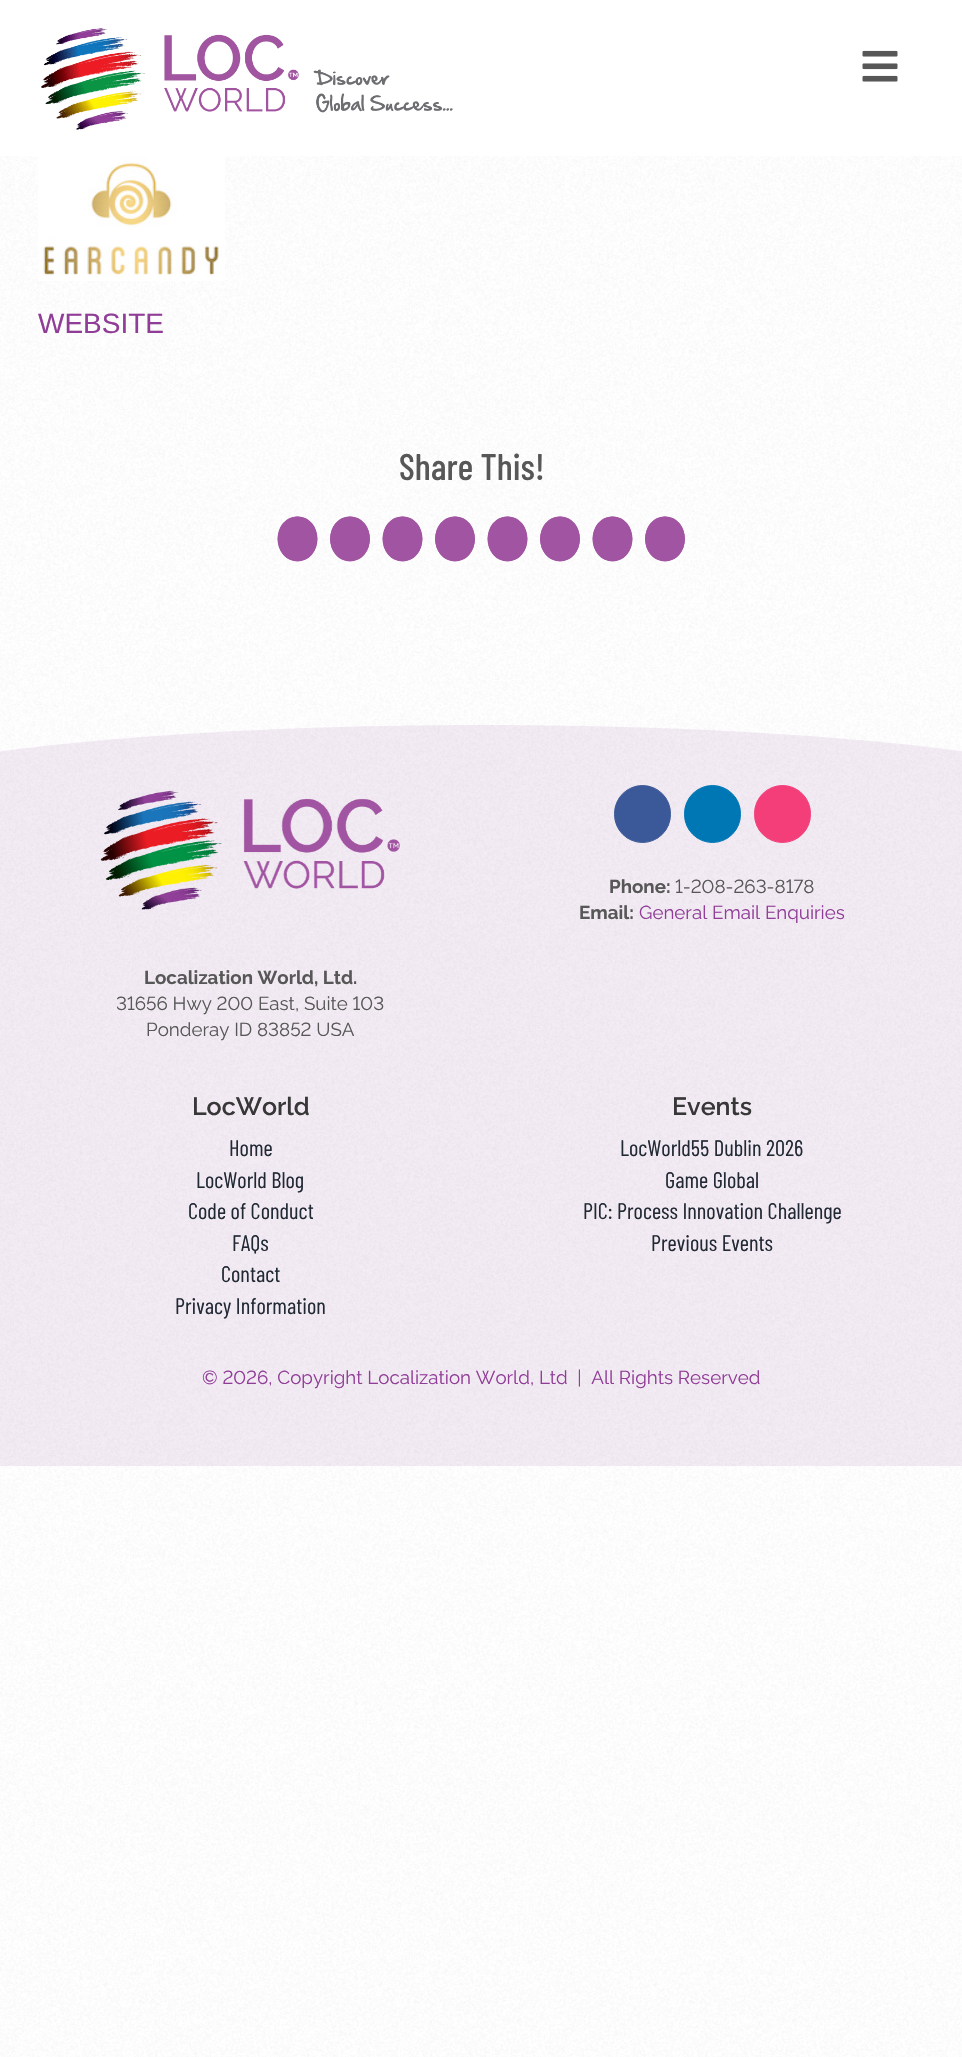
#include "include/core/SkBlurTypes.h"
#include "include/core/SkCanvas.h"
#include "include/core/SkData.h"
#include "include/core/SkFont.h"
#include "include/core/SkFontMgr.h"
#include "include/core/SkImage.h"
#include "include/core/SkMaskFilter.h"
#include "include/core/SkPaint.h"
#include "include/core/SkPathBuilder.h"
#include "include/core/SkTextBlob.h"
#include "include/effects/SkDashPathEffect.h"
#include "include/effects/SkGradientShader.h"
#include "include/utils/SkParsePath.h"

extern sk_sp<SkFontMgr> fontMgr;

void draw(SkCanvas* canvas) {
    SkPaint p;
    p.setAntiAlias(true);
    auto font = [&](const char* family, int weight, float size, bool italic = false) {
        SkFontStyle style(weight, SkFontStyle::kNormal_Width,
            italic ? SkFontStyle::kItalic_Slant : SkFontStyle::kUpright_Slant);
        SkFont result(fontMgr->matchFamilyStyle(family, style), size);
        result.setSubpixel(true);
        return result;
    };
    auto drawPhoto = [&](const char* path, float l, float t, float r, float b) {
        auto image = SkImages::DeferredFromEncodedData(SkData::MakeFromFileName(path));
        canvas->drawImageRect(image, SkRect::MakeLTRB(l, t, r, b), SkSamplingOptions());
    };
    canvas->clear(0xFFFFFFFF);
    drawPhoto("media/1.png", 0, 156, 962, 2057);
    drawPhoto("media/2.png", 41, 28, 453, 130);
    drawPhoto("media/3.png", 862, 50, 898, 82);
    drawPhoto("media/4.png", 38, 156, 225, 281);
    auto font1 = font("Liberation Sans", 400, 28);
    p.setColor(0xFF903D97);
    canvas->drawString("WEBSITE", 38, 333, font1, p);
    auto font2 = font("Barlow Condensed", 500, 37);
    p.setColor(0xFF575757);
    canvas->drawString("Share This!", 399, 480, font2, p);
    p.setColor(0xFFA154A1);
    canvas->drawOval(SkRect::MakeLTRB(277.5f, 516.5f, 317.5f, 561.5f), p);
    p.setStyle(SkPaint::kStroke_Style);
    p.setStrokeWidth(1.2f);
    canvas->drawPath(SkPathBuilder().moveTo(297.5f, 517).cubicTo(323, 517, 323, 560.5f, 297.5f, 560.5f).cubicTo(272, 560.5f, 272, 517, 297.5f, 517).close().detach(), p);
    p.setStyle(SkPaint::kFill_Style);
    canvas->drawOval(SkRect::MakeLTRB(330, 516.5f, 370, 561.5f), p);
    p.setStyle(SkPaint::kStroke_Style);
    canvas->drawPath(SkPathBuilder().moveTo(350, 517).cubicTo(375.5f, 517, 375.5f, 560.5f, 350, 560.5f).cubicTo(324.5f, 560.5f, 324.5f, 517, 350, 517).close().detach(), p);
    p.setStyle(SkPaint::kFill_Style);
    canvas->drawOval(SkRect::MakeLTRB(382.5f, 516.5f, 422.5f, 561.5f), p);
    p.setStyle(SkPaint::kStroke_Style);
    canvas->drawPath(SkPathBuilder().moveTo(402.5f, 517).cubicTo(428, 517, 428, 560.5f, 402.5f, 560.5f).cubicTo(377, 560.5f, 377, 517, 402.5f, 517).close().detach(), p);
    p.setStyle(SkPaint::kFill_Style);
    canvas->drawOval(SkRect::MakeLTRB(435, 516.5f, 475, 561.5f), p);
    p.setStyle(SkPaint::kStroke_Style);
    canvas->drawPath(SkPathBuilder().moveTo(455, 517).cubicTo(480.5f, 517, 480.5f, 560.5f, 455, 560.5f).cubicTo(429.5f, 560.5f, 429.5f, 517, 455, 517).close().detach(), p);
    p.setStyle(SkPaint::kFill_Style);
    canvas->drawOval(SkRect::MakeLTRB(487.5f, 516.5f, 527.5f, 561.5f), p);
    p.setStyle(SkPaint::kStroke_Style);
    canvas->drawPath(SkPathBuilder().moveTo(507.5f, 517).cubicTo(533, 517, 533, 560.5f, 507.5f, 560.5f).cubicTo(482, 560.5f, 482, 517, 507.5f, 517).close().detach(), p);
    p.setStyle(SkPaint::kFill_Style);
    canvas->drawOval(SkRect::MakeLTRB(540, 516.5f, 580, 561.5f), p);
    p.setStyle(SkPaint::kStroke_Style);
    canvas->drawPath(SkPathBuilder().moveTo(560, 517).cubicTo(585.5f, 517, 585.5f, 560.5f, 560, 560.5f).cubicTo(534.5f, 560.5f, 534.5f, 517, 560, 517).close().detach(), p);
    p.setStyle(SkPaint::kFill_Style);
    canvas->drawOval(SkRect::MakeLTRB(592.5f, 516.5f, 632.5f, 561.5f), p);
    p.setStyle(SkPaint::kStroke_Style);
    canvas->drawPath(SkPathBuilder().moveTo(612.5f, 517).cubicTo(638, 517, 638, 560.5f, 612.5f, 560.5f).cubicTo(587, 560.5f, 587, 517, 612.5f, 517).close().detach(), p);
    p.setStyle(SkPaint::kFill_Style);
    canvas->drawOval(SkRect::MakeLTRB(645, 516.5f, 685, 561.5f), p);
    p.setStyle(SkPaint::kStroke_Style);
    canvas->drawPath(SkPathBuilder().moveTo(665, 517).cubicTo(690.5f, 517, 690.5f, 560.5f, 665, 560.5f).cubicTo(639.5f, 560.5f, 639.5f, 517, 665, 517).close().detach(), p);
    p.setStyle(SkPaint::kFill_Style);
    p.setColor(0x1A8F4299);
    canvas->drawPath(SkPathBuilder().moveTo(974, 754).lineTo(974, 753).cubicTo(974, 753, 801, 725, 482, 725).cubicTo(166, 725, -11, 753, -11, 753).lineTo(-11, 754).close().detach(), p);
    canvas->drawRect(SkRect::MakeLTRB(0, 754, 962, 1466), p);
    p.setColor(0xFF3B5998);
    canvas->drawRoundRect(SkRect::MakeLTRB(614.5f, 785.5f, 670.5f, 842.5f), 28, 28, p);
    p.setStyle(SkPaint::kStroke_Style);
    p.setStrokeWidth(1);
    canvas->drawRoundRect(SkRect::MakeLTRB(614.5f, 785.5f, 670.5f, 842.5f), 28, 28, p);
    p.setStyle(SkPaint::kFill_Style);
    p.setColor(0xFF0077B5);
    canvas->drawRoundRect(SkRect::MakeLTRB(684.5f, 785.5f, 740.5f, 842.5f), 28, 28, p);
    p.setStyle(SkPaint::kStroke_Style);
    canvas->drawRoundRect(SkRect::MakeLTRB(684.5f, 785.5f, 740.5f, 842.5f), 28, 28, p);
    p.setStyle(SkPaint::kFill_Style);
    p.setColor(0xFFF33E7A);
    canvas->drawRoundRect(SkRect::MakeLTRB(754.5f, 785.5f, 810.5f, 842.5f), 28, 28, p);
    p.setStyle(SkPaint::kStroke_Style);
    canvas->drawRoundRect(SkRect::MakeLTRB(754.5f, 785.5f, 810.5f, 842.5f), 28, 28, p);
    auto font3 = font("Raleway", 700, 18.75f);
    p.setStyle(SkPaint::kFill_Style);
    p.setColor(0xFF575757);
    canvas->drawString("Phone:", 609, 893, font3, p);
    auto font4 = font("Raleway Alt", 400, 18.75f);
    canvas->drawString("1-208-263-8178", 675, 893, font4, p);
    canvas->drawString("Email:", 579, 919, font3, p);
    auto font5 = font("Raleway", 400, 18.75f);
    p.setColor(0xFF903D97);
    canvas->drawString("General Email Enquiries", 639, 919, font5, p);
    drawPhoto("media/5.png", 100, 790, 400, 910);
    p.setColor(0xFF575757);
    canvas->drawString("Localization World, Ltd.", 144, 984, font3, p);
    canvas->drawString("31656 Hwy 200 East, Suite 103", 116, 1010, font4, p);
    canvas->drawString("Ponderay ID 83852 USA", 146, 1036, font4, p);
    auto font6 = font("Raleway", 600, 25);
    p.setColor(0xFF373737);
    canvas->drawString("LocWorld", 192, 1115, font6, p);
    auto font7 = font("Barlow Condensed", 400, 22.5f);
    p.setColor(0xFF212934);
    {
        const struct { const char* s; float x, y; } items[] = {
            {"Home", 229, 1156},
            {"LocWorld Blog", 196, 1188},
            {"Code of Conduct", 188, 1219},
            {"FAQs", 232, 1251},
            {"Contact", 221, 1282},
            {"Privacy Information", 175, 1314},
        };
        for (auto [s, x, y] : items) {
            canvas->drawString(s, x, y, font7, p);
        }
    }
    p.setColor(0xFF373737);
    canvas->drawString("Events", 672, 1115, font6, p);
    p.setColor(0xFF212934);
    {
        const struct { const char* s; float x, y; } items[] = {
            {"LocWorld55 Dublin 2026", 620, 1156},
            {"Game Global", 665, 1188},
            {"PIC: Process Innovation Challenge", 583, 1219},
            {"Previous Events", 651, 1251},
        };
        for (auto [s, x, y] : items) {
            canvas->drawString(s, x, y, font7, p);
        }
    }
    p.setColor(0xFF903D97);
    canvas->drawString("© 2026, Copyright Localization World, Ltd  |  All Rights Reserved", 202, 1384, font4, p);
}
